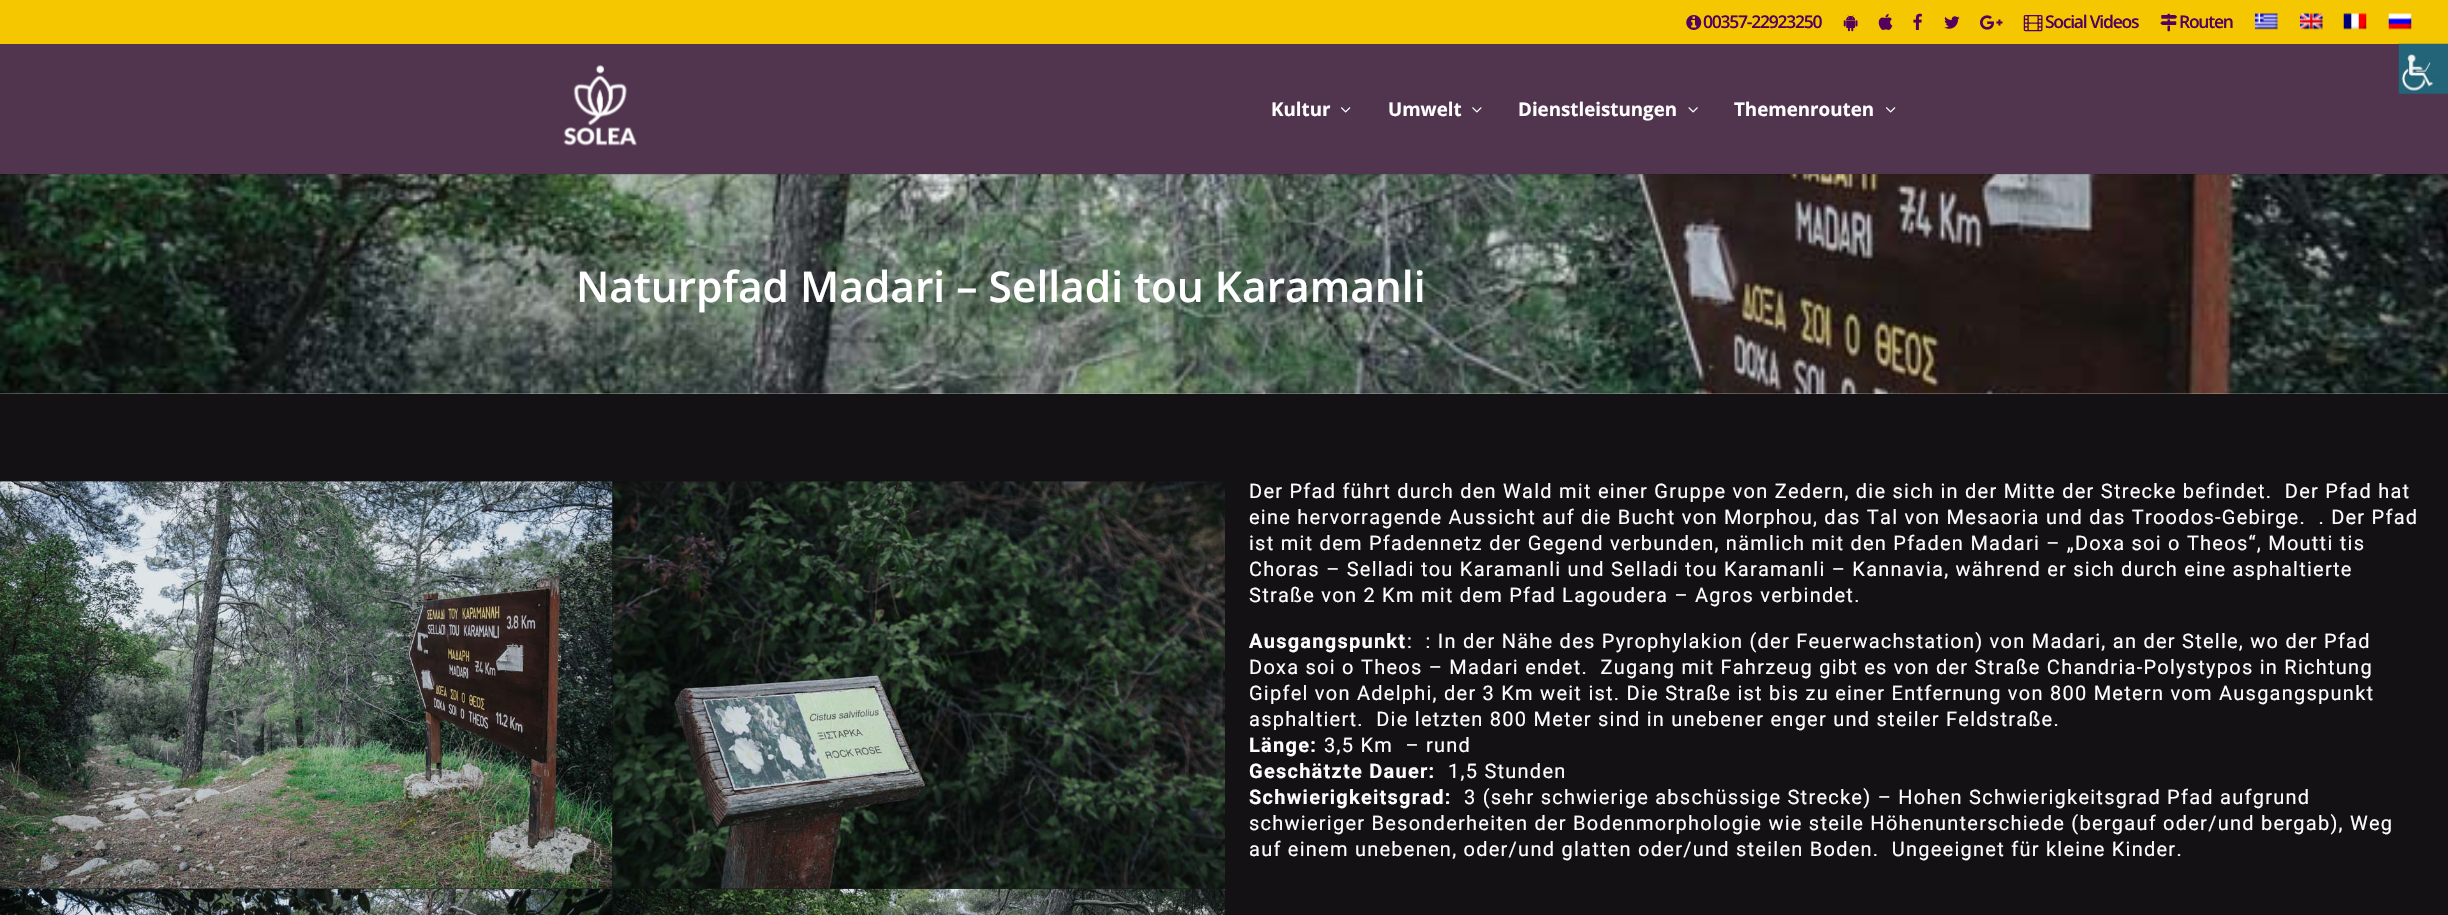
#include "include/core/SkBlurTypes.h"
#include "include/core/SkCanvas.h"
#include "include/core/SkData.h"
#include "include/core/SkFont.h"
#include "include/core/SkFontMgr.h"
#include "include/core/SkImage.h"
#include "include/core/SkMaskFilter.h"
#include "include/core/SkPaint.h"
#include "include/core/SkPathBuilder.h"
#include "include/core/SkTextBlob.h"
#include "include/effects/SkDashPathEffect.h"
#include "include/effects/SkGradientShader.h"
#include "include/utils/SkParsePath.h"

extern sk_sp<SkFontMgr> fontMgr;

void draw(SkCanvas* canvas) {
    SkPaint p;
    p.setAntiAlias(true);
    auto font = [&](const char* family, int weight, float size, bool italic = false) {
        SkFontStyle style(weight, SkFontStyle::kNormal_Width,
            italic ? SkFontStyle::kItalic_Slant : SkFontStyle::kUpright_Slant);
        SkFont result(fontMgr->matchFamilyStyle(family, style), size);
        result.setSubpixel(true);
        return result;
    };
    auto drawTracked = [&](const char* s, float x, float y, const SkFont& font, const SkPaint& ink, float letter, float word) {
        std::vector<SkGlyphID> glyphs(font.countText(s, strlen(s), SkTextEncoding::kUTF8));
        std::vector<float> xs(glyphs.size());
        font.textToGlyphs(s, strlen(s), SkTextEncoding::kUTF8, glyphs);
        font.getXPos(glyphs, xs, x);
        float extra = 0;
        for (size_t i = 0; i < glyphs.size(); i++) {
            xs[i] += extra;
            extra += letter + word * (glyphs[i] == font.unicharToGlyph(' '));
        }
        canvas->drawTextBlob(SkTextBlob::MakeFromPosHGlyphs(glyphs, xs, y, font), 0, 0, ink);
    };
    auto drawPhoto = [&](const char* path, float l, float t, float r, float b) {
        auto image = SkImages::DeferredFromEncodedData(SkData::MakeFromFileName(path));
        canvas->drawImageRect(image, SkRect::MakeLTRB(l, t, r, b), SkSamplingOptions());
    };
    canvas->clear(0xFFFFFFFF);
    p.setColor(0xFFF4C700);
    canvas->drawRect(SkRect::MakeLTRB(0, 0, 2448, 44), p);
    drawPhoto("media/1.png", 1686, 15, 1702, 30);
    auto font1 = font("Open Sans", 600, 17.5f);
    p.setColor(0xFF54005E);
    drawTracked("00357-22923250", 1703, 28, font1, p, -1.25f, 0);
    drawPhoto("media/2.png", 1843, 15, 1858, 32);
    drawPhoto("media/3.png", 1878, 13, 1893, 30);
    drawPhoto("media/4.png", 1913, 13, 1922, 30);
    drawPhoto("media/5.png", 1944, 16, 1960, 29);
    drawPhoto("media/6.png", 1980, 15, 2003, 30);
    drawPhoto("media/7.png", 2023, 15, 2043, 32);
    drawTracked("Social Videos", 2045, 28, font1, p, -1.25f, 0);
    drawPhoto("media/8.png", 2160, 13, 2178, 32);
    drawTracked("Routen", 2179, 28, font1, p, -1.25f, 0);
    drawPhoto("media/9.png", 2255, 13, 2278, 30);
    drawPhoto("media/10.png", 2300, 13, 2323, 30);
    drawPhoto("media/11.png", 2343, 13, 2367, 30);
    drawPhoto("media/12.png", 2388, 13, 2412, 30);
    drawPhoto("media/17.png", 0, 174, 2448, 394);
    p.setColor(0x1A000000);
    canvas->drawPath(SkPathBuilder().moveTo(0, 174).lineTo(0, 175).lineTo(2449, 175).lineTo(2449, 45).lineTo(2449, 174).close().detach(), p);
    p.setColor(0xFF51344D);
    canvas->drawRect(SkRect::MakeLTRB(0, 44, 2448, 174), p);
    drawPhoto("media/13.png", 563, 65, 637, 146);
    auto font2 = font("Open Sans", 700, 18.75f);
    p.setColor(0xFFFFFFFF);
    canvas->drawString("Kultur", 1271, 116, font2, p);
    drawPhoto("media/14.png", 1341, 107, 1351, 113);
    canvas->drawString("Umwelt", 1388, 116, font2, p);
    drawPhoto("media/15.png", 1472, 107, 1482, 113);
    canvas->drawString("Dienstleistungen", 1518, 116, font2, p);
    drawPhoto("media/16.png", 1688, 107, 1698, 113);
    canvas->drawString("Themenrouten", 1734, 116, font2, p);
    drawPhoto("media/14.png", 1886, 107, 1896, 113);
    auto font3 = font("Open Sans", 600, 42.5f);
    canvas->drawString("Naturpfad Madari – Selladi tou Karamanli", 576, 302, font3, p);
    p.setColor(0xFF141115);
    canvas->drawRect(SkRect::MakeLTRB(0, 394, 2448, 915), p);
    drawPhoto("media/18.png", 0, 481, 613, 889);
    drawPhoto("media/19.png", 0, 888, 613, 915);
    drawPhoto("media/20.png", 612, 481, 1225, 889);
    drawPhoto("media/21.png", 612, 888, 1225, 915);
    auto font4 = font("Roboto", 400, 20);
    p.setColor(0xFFFFFFFF);
    {
        const struct { const char* s; float x, y; } items[] = {
            {"Der Pfad führt durch den Wald mit einer Gruppe von Zedern, die sich in der Mitte der Strecke befindet.  Der Pfad hat", 1249, 498},
            {"eine hervorragende Aussicht auf die Bucht von Morphou, das Tal von Mesaoria und das Troodos-Gebirge.  . Der Pfad", 1249, 524},
            {"ist mit dem Pfadennetz der Gegend verbunden, nämlich mit den Pfaden Madari – „Doxa soi o Theos“, Moutti tis", 1249, 550},
            {"Choras – Selladi tou Karamanli und Selladi tou Karamanli – Kannavia, während er sich durch eine asphaltierte", 1249, 576},
            {"Straße von 2 Km mit dem Pfad Lagoudera – Agros verbindet.", 1249, 602},
        };
        for (auto [s, x, y] : items) {
            drawTracked(s, x, y, font4, p, 1.25f, 0);
        }
    }
    auto font5 = font("Roboto", 700, 20);
    drawTracked("Ausgangspunkt", 1249, 648, font5, p, 1.25f, 0);
    {
        const struct { const char* s; float x, y; } items[] = {
            {":  : In der Nähe des Pyrophylakion (der Feuerwachstation) von Madari, an der Stelle, wo der Pfad", 1407, 648},
            {"Doxa soi o Theos – Madari endet.  Zugang mit Fahrzeug gibt es von der Straße Chandria-Polystypos in Richtung", 1249, 674},
            {"Gipfel von Adelphi, der 3 Km weit ist. Die Straße ist bis zu einer Entfernung von 800 Metern vom Ausgangspunkt", 1249, 700},
            {"asphaltiert.  Die letzten 800 Meter sind in unebener enger und steiler Feldstraße.", 1249, 726},
        };
        for (auto [s, x, y] : items) {
            drawTracked(s, x, y, font4, p, 1.25f, 0);
        }
    }
    drawTracked("Länge:", 1249, 752, font5, p, 1.25f, 0);
    drawTracked("3,5 Km  – rund", 1324, 752, font4, p, 1.25f, 0);
    drawTracked("Geschätzte Dauer:", 1249, 778, font5, p, 1.25f, 0);
    drawTracked("1,5 Stunden", 1448, 778, font4, p, 1.25f, 0);
    drawTracked("Schwierigkeitsgrad:", 1249, 804, font5, p, 1.25f, 0);
    {
        const struct { const char* s; float x, y; } items[] = {
            {"3 (sehr schwierige abschüssige Strecke) – Hohen Schwierigkeitsgrad Pfad aufgrund", 1464, 804},
            {"schwieriger Besonderheiten der Bodenmorphologie wie steile Höhenunterschiede (bergauf oder/und bergab), Weg", 1249, 830},
            {"auf einem unebenen, oder/und glatten oder/und steilen Boden.  Ungeeignet für kleine Kinder.", 1249, 856},
        };
        for (auto [s, x, y] : items) {
            drawTracked(s, x, y, font4, p, 1.25f, 0);
        }
    }
    drawPhoto("media/22.png", 2398, 43, 2448, 94);
}
